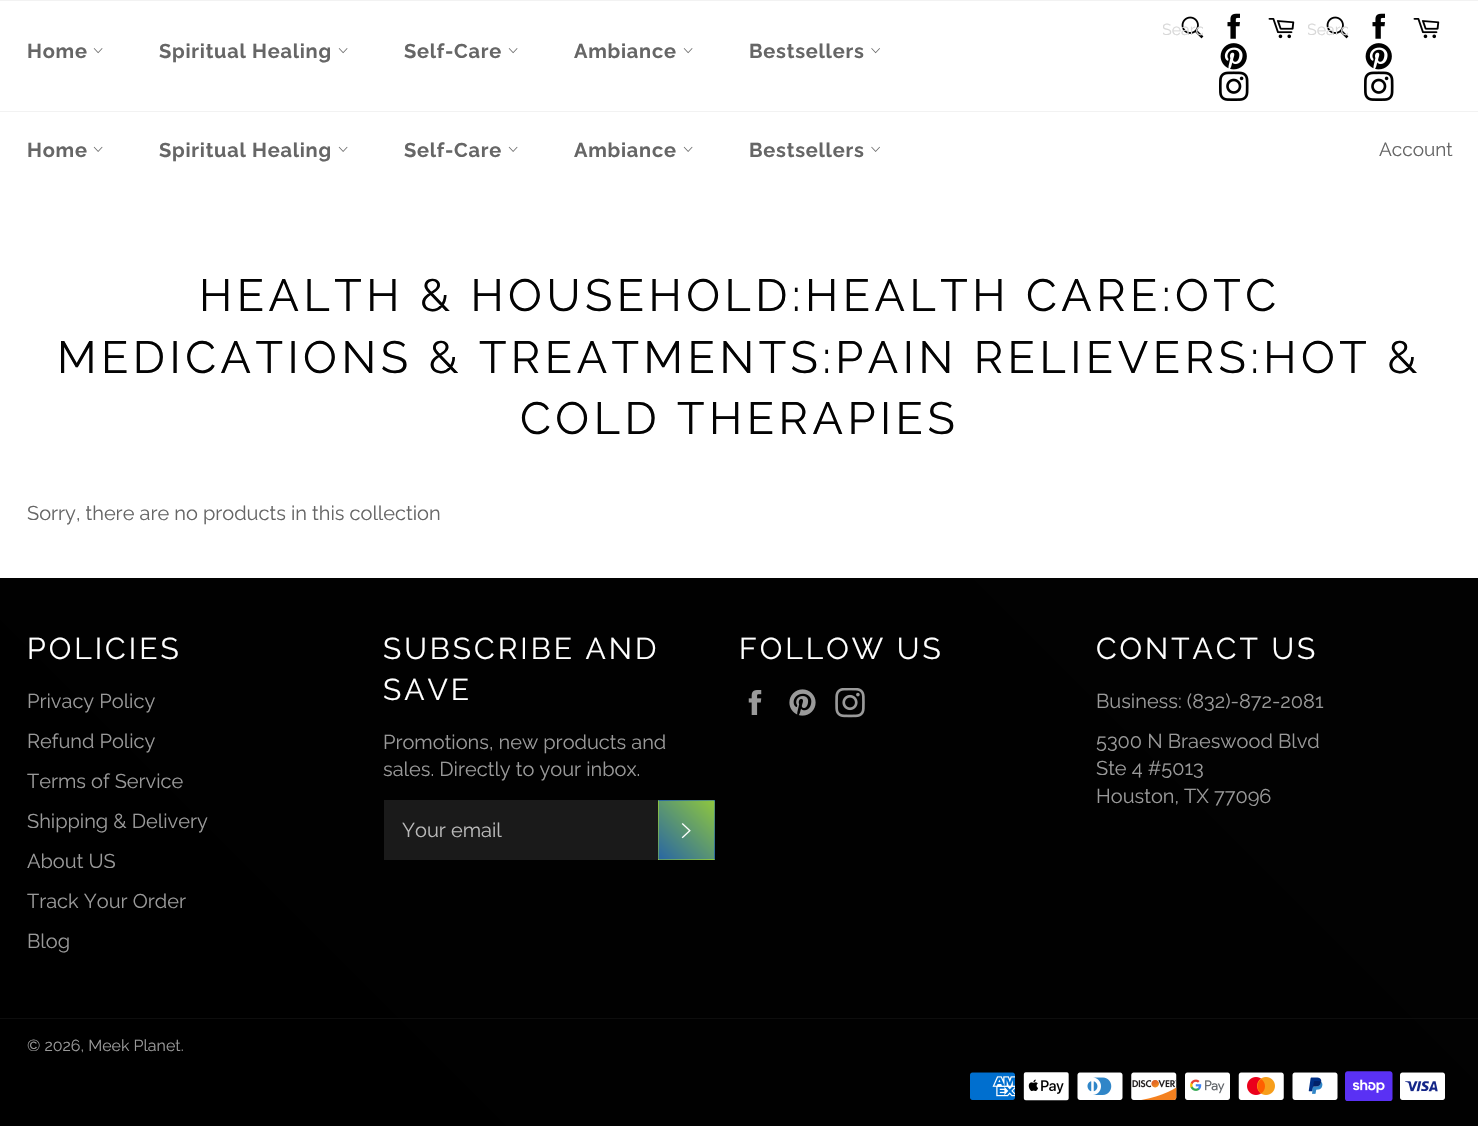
#include "include/core/SkBlurTypes.h"
#include "include/core/SkCanvas.h"
#include "include/core/SkData.h"
#include "include/core/SkFont.h"
#include "include/core/SkFontMgr.h"
#include "include/core/SkImage.h"
#include "include/core/SkMaskFilter.h"
#include "include/core/SkPaint.h"
#include "include/core/SkPathBuilder.h"
#include "include/core/SkTextBlob.h"
#include "include/effects/SkDashPathEffect.h"
#include "include/effects/SkGradientShader.h"
#include "include/utils/SkParsePath.h"

extern sk_sp<SkFontMgr> fontMgr;

void draw(SkCanvas* canvas) {
    SkPaint p;
    p.setAntiAlias(true);
    auto font = [&](const char* family, int weight, float size, bool italic = false) {
        SkFontStyle style(weight, SkFontStyle::kNormal_Width,
            italic ? SkFontStyle::kItalic_Slant : SkFontStyle::kUpright_Slant);
        SkFont result(fontMgr->matchFamilyStyle(family, style), size);
        result.setSubpixel(true);
        return result;
    };
    auto drawTracked = [&](const char* s, float x, float y, const SkFont& font, const SkPaint& ink, float letter, float word) {
        std::vector<SkGlyphID> glyphs(font.countText(s, strlen(s), SkTextEncoding::kUTF8));
        std::vector<float> xs(glyphs.size());
        font.textToGlyphs(s, strlen(s), SkTextEncoding::kUTF8, glyphs);
        font.getXPos(glyphs, xs, x);
        float extra = 0;
        for (size_t i = 0; i < glyphs.size(); i++) {
            xs[i] += extra;
            extra += letter + word * (glyphs[i] == font.unicharToGlyph(' '));
        }
        canvas->drawTextBlob(SkTextBlob::MakeFromPosHGlyphs(glyphs, xs, y, font), 0, 0, ink);
    };
    auto drawPhoto = [&](const char* path, float l, float t, float r, float b) {
        auto image = SkImages::DeferredFromEncodedData(SkData::MakeFromFileName(path));
        canvas->drawImageRect(image, SkRect::MakeLTRB(l, t, r, b), SkSamplingOptions());
    };
    canvas->clear(0xFFFFFFFF);
    p.setColor(0xFFF2F2F2);
    canvas->drawRect(SkRect::MakeLTRB(0, 0, 1478, 1), p);
    drawPhoto("media/1.png", 1181, 16, 1204, 39);
    canvas->save();
    canvas->clipRect(SkRect::MakeLTRB(1163, 20, 1203, 39));
    auto font1 = font("Raleway", 400, 16);
    p.setColor(0xFFD8D8D8);
    canvas->drawString("Searc", 1162, 35, font1, p);
    canvas->restore();
    drawPhoto("media/2.png", 1227, 13, 1240, 39);
    drawPhoto("media/3.png", 1220, 43, 1247, 70);
    drawPhoto("media/4.png", 1219, 71, 1249, 101);
    drawPhoto("media/5.png", 1268, 18, 1295, 39);
    drawPhoto("media/1.png", 1326, 16, 1349, 39);
    canvas->save();
    canvas->clipRect(SkRect::MakeLTRB(1308, 20, 1348, 39));
    canvas->drawString("Searc", 1307, 35, font1, p);
    canvas->restore();
    drawPhoto("media/2.png", 1372, 13, 1385, 39);
    drawPhoto("media/3.png", 1365, 43, 1392, 70);
    drawPhoto("media/4.png", 1364, 71, 1394, 101);
    drawPhoto("media/5.png", 1413, 18, 1440, 39);
    auto font2 = font("Raleway", 700, 20);
    p.setColor(0xFF666666);
    drawTracked("Home", 27, 58, font2, p, 0.75f, 0);
    drawPhoto("media/6.png", 93, 48, 103, 54);
    drawTracked("Spiritual Healing", 159, 58, font2, p, 0.75f, 0);
    drawPhoto("media/6.png", 338, 48, 348, 54);
    drawTracked("Self-Care", 404, 58, font2, p, 0.75f, 0);
    drawPhoto("media/6.png", 508, 48, 518, 54);
    drawTracked("Ambiance", 574, 58, font2, p, 0.75f, 0);
    drawPhoto("media/6.png", 683, 48, 693, 54);
    drawTracked("Bestsellers", 749, 58, font2, p, 0.75f, 0);
    drawPhoto("media/7.png", 871, 48, 880, 54);
    p.setColor(0xFFF2F2F2);
    canvas->drawRect(SkRect::MakeLTRB(0, 111, 1478, 112), p);
    p.setColor(0xFF666666);
    drawTracked("Home", 27, 157, font2, p, 0.75f, 0);
    drawPhoto("media/8.png", 93, 146, 103, 152);
    drawTracked("Spiritual Healing", 159, 157, font2, p, 0.75f, 0);
    drawPhoto("media/8.png", 338, 146, 348, 152);
    drawTracked("Self-Care", 404, 157, font2, p, 0.75f, 0);
    drawPhoto("media/8.png", 508, 146, 518, 152);
    drawTracked("Ambiance", 574, 157, font2, p, 0.75f, 0);
    drawPhoto("media/8.png", 683, 146, 693, 152);
    drawTracked("Bestsellers", 749, 157, font2, p, 0.75f, 0);
    drawPhoto("media/9.png", 871, 146, 880, 152);
    auto font3 = font("Raleway", 400, 19);
    canvas->drawString("Account", 1379, 156, font3, p);
    auto font4 = font("Raleway", 400, 45);
    p.setColor(0xFF030303);
    {
        const struct { const char* s; float x, y; } items[] = {
            {"HEALTH & HOUSEHOLD:HEALTH CARE:OTC", 199, 311},
            {"MEDICATIONS & TREATMENTS:PAIN RELIEVERS:HOT &", 57, 373},
            {"COLD THERAPIES", 520, 434},
        };
        for (auto [s, x, y] : items) {
            drawTracked(s, x, y, font4, p, 4.5f, 0);
        }
    }
    auto font5 = font("Raleway", 400, 20);
    p.setColor(0xFF666666);
    canvas->drawString("Sorry, there are no products in this collection", 27, 520, font5, p);
    {
        const SkColor colors[] = {0xFF000000, 0xFF020202};
        const float stops[] = {0, 1};
        const SkPoint ends[] = {{233, 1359}, {1246, 345}};
        p.setShader(SkGradientShader::MakeLinear(ends, colors, stops, 2, SkTileMode::kClamp));
        p.setAlpha(255);
    }
    canvas->drawRect(SkRect::MakeLTRB(0, 578, 1478, 1126), p);
    auto font6 = font("Raleway", 400, 30);
    p.setShader(nullptr);
    p.setColor(0xFFFFFFFF);
    drawTracked("POLICIES", 27, 659, font6, p, 3, 0);
    p.setColor(0xFF999999);
    {
        const struct { const char* s; float x, y; } items[] = {
            {"Privacy Policy", 27, 708},
            {"Refund Policy", 27, 748},
            {"Terms of Service", 27, 788},
            {"Shipping & Delivery", 27, 828},
            {"About US", 27, 868},
            {"Track Your Order", 27, 908},
            {"Blog", 27, 948},
        };
        for (auto [s, x, y] : items) {
            canvas->drawString(s, x, y, font5, p);
        }
    }
    p.setColor(0xFFFFFFFF);
    drawTracked("SUBSCRIBE AND", 383, 659, font6, p, 3, 0);
    drawTracked("SAVE", 383, 700, font6, p, 3, 0);
    p.setColor(0xFF999999);
    canvas->drawString("Promotions, new products and", 383, 749, font5, p);
    canvas->drawString("sales. Directly to your inbox.", 383, 776, font5, p);
    p.setColor(0xFF1A1A1A);
    canvas->drawRect(SkRect::MakeLTRB(384, 800, 658, 860), p);
    p.setColor(0xFFBABABA);
    canvas->drawString("Your email", 402, 837, font5, p);
    {
        const SkColor colors[] = {0xFF2967A3, 0xFF8DC540};
        const float stops[] = {0, 1};
        const SkPoint ends[] = {{603, 801}, {659, 744}};
        p.setShader(SkGradientShader::MakeLinear(ends, colors, stops, 2, SkTileMode::kClamp));
        p.setAlpha(255);
    }
    canvas->drawRect(SkRect::MakeLTRB(658, 800, 659, 801), p);
    {
        const SkColor colors[] = {0xFF2967A3, 0xFF8DC540};
        const float stops[] = {0, 1};
        const SkPoint ends[] = {{658, 801}, {714, 744}};
        p.setShader(SkGradientShader::MakeLinear(ends, colors, stops, 2, SkTileMode::kClamp));
        p.setAlpha(255);
    }
    canvas->drawRect(SkRect::MakeLTRB(659, 800, 714, 801), p);
    {
        const SkColor colors[] = {0xFF2967A3, 0xFF8DC540};
        const float stops[] = {0, 1};
        const SkPoint ends[] = {{713, 801}, {769, 744}};
        p.setShader(SkGradientShader::MakeLinear(ends, colors, stops, 2, SkTileMode::kClamp));
        p.setAlpha(255);
    }
    canvas->drawRect(SkRect::MakeLTRB(714, 800, 715, 801), p);
    {
        const SkColor colors[] = {0xFF2967A3, 0xFF8DC540};
        const float stops[] = {0, 1};
        const SkPoint ends[] = {{603, 858}, {659, 802}};
        p.setShader(SkGradientShader::MakeLinear(ends, colors, stops, 2, SkTileMode::kClamp));
        p.setAlpha(255);
    }
    canvas->drawRect(SkRect::MakeLTRB(658, 801, 659, 859), p);
    {
        const SkColor colors[] = {0xFF2967A3, 0xFF8DC540};
        const float stops[] = {0, 1};
        const SkPoint ends[] = {{658, 858}, {714, 802}};
        p.setShader(SkGradientShader::MakeLinear(ends, colors, stops, 2, SkTileMode::kClamp));
        p.setAlpha(255);
    }
    canvas->drawRect(SkRect::MakeLTRB(659, 801, 714, 859), p);
    {
        const SkColor colors[] = {0xFF2967A3, 0xFF8DC540};
        const float stops[] = {0, 1};
        const SkPoint ends[] = {{713, 858}, {769, 802}};
        p.setShader(SkGradientShader::MakeLinear(ends, colors, stops, 2, SkTileMode::kClamp));
        p.setAlpha(255);
    }
    canvas->drawRect(SkRect::MakeLTRB(714, 801, 715, 859), p);
    {
        const SkColor colors[] = {0xFF2967A3, 0xFF8DC540};
        const float stops[] = {0, 1};
        const SkPoint ends[] = {{603, 916}, {659, 859}};
        p.setShader(SkGradientShader::MakeLinear(ends, colors, stops, 2, SkTileMode::kClamp));
        p.setAlpha(255);
    }
    canvas->drawRect(SkRect::MakeLTRB(658, 859, 659, 860), p);
    {
        const SkColor colors[] = {0xFF2967A3, 0xFF8DC540};
        const float stops[] = {0, 1};
        const SkPoint ends[] = {{658, 916}, {714, 859}};
        p.setShader(SkGradientShader::MakeLinear(ends, colors, stops, 2, SkTileMode::kClamp));
        p.setAlpha(255);
    }
    canvas->drawRect(SkRect::MakeLTRB(659, 859, 714, 860), p);
    {
        const SkColor colors[] = {0xFF2967A3, 0xFF8DC540};
        const float stops[] = {0, 1};
        const SkPoint ends[] = {{713, 916}, {769, 859}};
        p.setShader(SkGradientShader::MakeLinear(ends, colors, stops, 2, SkTileMode::kClamp));
        p.setAlpha(255);
    }
    canvas->drawRect(SkRect::MakeLTRB(714, 859, 715, 860), p);
    drawPhoto("media/10.png", 681, 823, 691, 839);
    p.setShader(nullptr);
    p.setColor(0xFFFFFFFF);
    drawTracked("FOLLOW US", 739, 659, font6, p, 3, 0);
    drawPhoto("media/11.png", 748, 690, 762, 715);
    drawPhoto("media/12.png", 789, 689, 816, 716);
    drawPhoto("media/13.png", 835, 688, 865, 718);
    drawTracked("CONTACT US", 1096, 659, font6, p, 3, 0);
    p.setColor(0xFF999999);
    {
        const struct { const char* s; float x, y; } items[] = {
            {"Business: (832)-872-2081", 1096, 708},
            {"5300 N Braeswood Blvd", 1096, 748},
            {"Ste 4 #5013", 1096, 775},
            {"Houston, TX 77096", 1096, 803},
        };
        for (auto [s, x, y] : items) {
            canvas->drawString(s, x, y, font5, p);
        }
    }
    p.setColor(0xFF0D0D0D);
    canvas->drawRect(SkRect::MakeLTRB(0, 1018, 1478, 1019), p);
    p.setColor(0xFF999999);
    canvas->drawString("© 2026, Meek Planet.", 27, 1051, font1, p);
    drawPhoto("media/14.png", 970, 1072, 1015, 1100);
    drawPhoto("media/15.png", 1023, 1072, 1069, 1101);
    drawPhoto("media/16.png", 1077, 1072, 1123, 1100);
    drawPhoto("media/17.png", 1131, 1072, 1177, 1100);
    drawPhoto("media/18.png", 1185, 1072, 1230, 1100);
    drawPhoto("media/19.png", 1238, 1072, 1284, 1100);
    drawPhoto("media/20.png", 1292, 1072, 1338, 1100);
    drawPhoto("media/21.png", 1345, 1071, 1393, 1101);
    drawPhoto("media/22.png", 1400, 1072, 1445, 1100);
}
